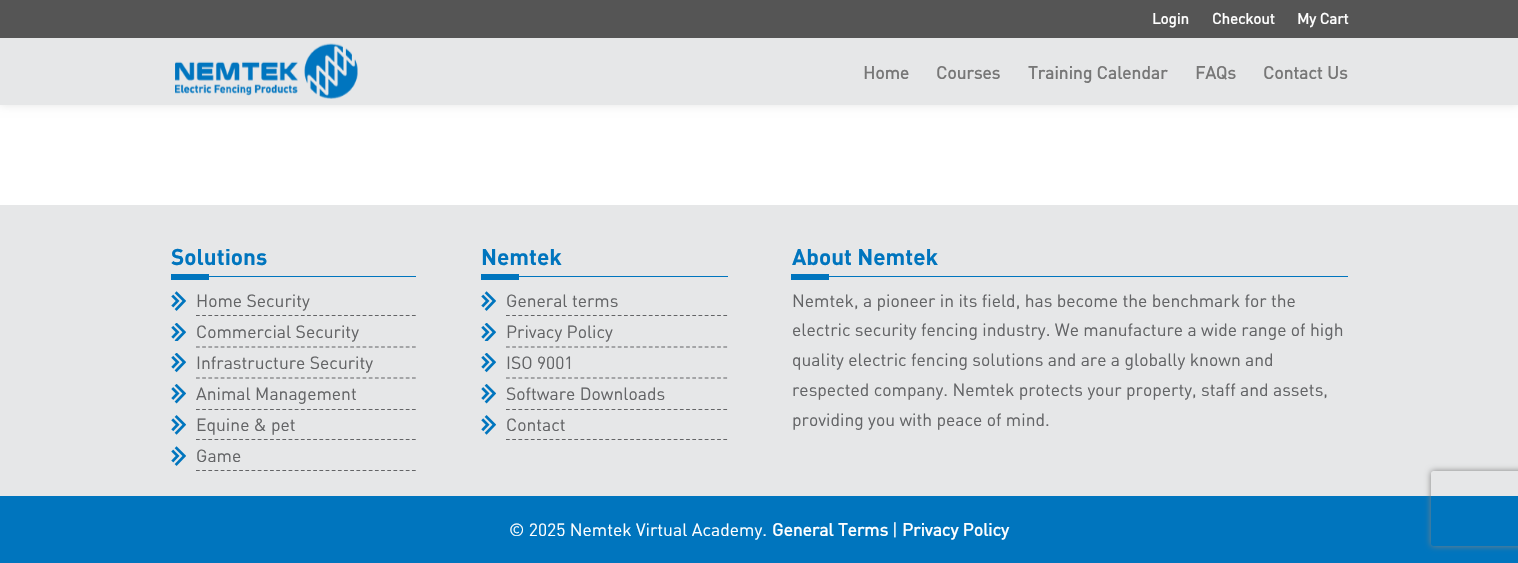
#include "include/core/SkBlurTypes.h"
#include "include/core/SkCanvas.h"
#include "include/core/SkData.h"
#include "include/core/SkFont.h"
#include "include/core/SkFontMgr.h"
#include "include/core/SkImage.h"
#include "include/core/SkMaskFilter.h"
#include "include/core/SkPaint.h"
#include "include/core/SkPathBuilder.h"
#include "include/core/SkTextBlob.h"
#include "include/effects/SkDashPathEffect.h"
#include "include/effects/SkGradientShader.h"
#include "include/utils/SkParsePath.h"

extern sk_sp<SkFontMgr> fontMgr;

void draw(SkCanvas* canvas) {
    SkPaint p;
    p.setAntiAlias(true);
    auto font = [&](const char* family, int weight, float size, bool italic = false) {
        SkFontStyle style(weight, SkFontStyle::kNormal_Width,
            italic ? SkFontStyle::kItalic_Slant : SkFontStyle::kUpright_Slant);
        SkFont result(fontMgr->matchFamilyStyle(family, style), size);
        result.setSubpixel(true);
        return result;
    };
    auto drawPhoto = [&](const char* path, float l, float t, float r, float b) {
        auto image = SkImages::DeferredFromEncodedData(SkData::MakeFromFileName(path));
        canvas->drawImageRect(image, SkRect::MakeLTRB(l, t, r, b), SkSamplingOptions());
    };
    canvas->clear(0xFFE6E7E8);
    p.setColor(0xFFFFFFFF);
    canvas->drawRect(SkRect::MakeLTRB(0, 105, 1518, 205), p);
    p.setColor(0x1A000000);
    p.setMaskFilter(SkMaskFilter::MakeBlur(kNormal_SkBlurStyle, 4.5f));
    canvas->drawRect(SkRect::MakeLTRB(0, 38, 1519, 105), p);
    p.setMaskFilter(nullptr);
    p.setColor(0xFF555555);
    canvas->drawRect(SkRect::MakeLTRB(0, 0, 1518, 38), p);
    auto font1 = font("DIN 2", 700, 15);
    p.setColor(0xFFFFFFFF);
    {
        const struct { const char* s; float x, y; } items[] = {
            {"Login", 1152, 24},
            {"Checkout", 1212, 24},
            {"My Cart", 1297, 24},
        };
        for (auto [s, x, y] : items) {
            canvas->drawString(s, x, y, font1, p);
        }
    }
    p.setColor(0xFFE6E7E8);
    canvas->drawRect(SkRect::MakeLTRB(0, 38, 1518, 105), p);
    drawPhoto("media/1.png", 175, 43, 358, 99);
    auto font2 = font("DIN 2", 700, 17.5f);
    p.setColor(0xFF777777);
    {
        const struct { const char* s; float x, y; } items[] = {
            {"Home", 863, 79},
            {"Courses", 936, 79},
            {"Training Calendar", 1028, 79},
            {"FAQs", 1195, 79},
            {"Contact Us", 1263, 79},
        };
        for (auto [s, x, y] : items) {
            canvas->drawString(s, x, y, font2, p);
        }
    }
    p.setColor(0xFF0075BE);
    canvas->drawRect(SkRect::MakeLTRB(209, 276, 416, 277), p);
    auto font3 = font("DIN", 700, 22.5f);
    canvas->drawString("Solutions", 171, 265, font3, p);
    canvas->drawRect(SkRect::MakeLTRB(171, 274, 209, 280), p);
    drawPhoto("media/2.png", 171, 291, 186, 311);
    p.setStyle(SkPaint::kStroke_Style);
    p.setStrokeWidth(1.2f);
    p.setColor(0xFF636466);
    p.setPathEffect(SkDashPathEffect::Make({{3.75f, 2.42f}}, 0));
    canvas->drawPath(SkPathBuilder().moveTo(196, 315.5f).lineTo(416, 315.5f).detach(), p);
    p.setPathEffect(nullptr);
    auto font4 = font("DIN", 400, 17.5f);
    p.setStyle(SkPaint::kFill_Style);
    canvas->drawString("Home Security", 196, 307, font4, p);
    drawPhoto("media/3.png", 171, 323, 186, 341);
    p.setStyle(SkPaint::kStroke_Style);
    p.setPathEffect(SkDashPathEffect::Make({{3.75f, 2.42f}}, 0));
    canvas->drawPath(SkPathBuilder().moveTo(196, 347).lineTo(416, 347).detach(), p);
    p.setPathEffect(nullptr);
    p.setStyle(SkPaint::kFill_Style);
    canvas->drawString("Commercial Security", 196, 338, font4, p);
    drawPhoto("media/4.png", 171, 353, 186, 373);
    p.setStyle(SkPaint::kStroke_Style);
    p.setPathEffect(SkDashPathEffect::Make({{3.75f, 2.42f}}, 0));
    canvas->drawPath(SkPathBuilder().moveTo(196, 378).lineTo(416, 378).detach(), p);
    p.setPathEffect(nullptr);
    p.setStyle(SkPaint::kFill_Style);
    canvas->drawString("Infrastructure Security", 196, 369, font4, p);
    drawPhoto("media/5.png", 171, 384, 186, 404);
    p.setStyle(SkPaint::kStroke_Style);
    p.setPathEffect(SkDashPathEffect::Make({{3.75f, 2.42f}}, 0));
    canvas->drawPath(SkPathBuilder().moveTo(196, 409.5f).lineTo(416, 409.5f).detach(), p);
    p.setPathEffect(nullptr);
    p.setStyle(SkPaint::kFill_Style);
    canvas->drawString("Animal Management", 196, 400, font4, p);
    drawPhoto("media/6.png", 171, 415, 186, 435);
    p.setStyle(SkPaint::kStroke_Style);
    p.setPathEffect(SkDashPathEffect::Make({{3.75f, 2.42f}}, 0));
    canvas->drawPath(SkPathBuilder().moveTo(196, 439.5f).lineTo(416, 439.5f).detach(), p);
    p.setPathEffect(nullptr);
    p.setStyle(SkPaint::kFill_Style);
    canvas->drawString("Equine & pet", 196, 431, font4, p);
    drawPhoto("media/2.png", 171, 446, 186, 466);
    p.setStyle(SkPaint::kStroke_Style);
    p.setPathEffect(SkDashPathEffect::Make({{3.75f, 2.42f}}, 0));
    canvas->drawPath(SkPathBuilder().moveTo(196, 470.5f).lineTo(416, 470.5f).detach(), p);
    p.setPathEffect(nullptr);
    p.setStyle(SkPaint::kFill_Style);
    canvas->drawString("Game", 196, 462, font4, p);
    p.setColor(0xFF0075BE);
    canvas->drawRect(SkRect::MakeLTRB(519, 276, 728, 277), p);
    canvas->drawString("Nemtek", 481, 265, font3, p);
    canvas->drawRect(SkRect::MakeLTRB(481, 274, 519, 280), p);
    drawPhoto("media/2.png", 481, 291, 496, 311);
    p.setStyle(SkPaint::kStroke_Style);
    p.setColor(0xFF636466);
    p.setPathEffect(SkDashPathEffect::Make({{3.75f, 2.46f}}, 0));
    canvas->drawPath(SkPathBuilder().moveTo(506, 315.5f).lineTo(727.5f, 315.5f).detach(), p);
    p.setPathEffect(nullptr);
    p.setStyle(SkPaint::kFill_Style);
    canvas->drawString("General terms", 506, 307, font4, p);
    drawPhoto("media/3.png", 481, 323, 496, 341);
    p.setStyle(SkPaint::kStroke_Style);
    p.setPathEffect(SkDashPathEffect::Make({{3.75f, 2.46f}}, 0));
    canvas->drawPath(SkPathBuilder().moveTo(506, 347).lineTo(727.5f, 347).detach(), p);
    p.setPathEffect(nullptr);
    p.setStyle(SkPaint::kFill_Style);
    canvas->drawString("Privacy Policy", 506, 338, font4, p);
    drawPhoto("media/4.png", 481, 353, 496, 373);
    p.setStyle(SkPaint::kStroke_Style);
    p.setPathEffect(SkDashPathEffect::Make({{3.75f, 2.46f}}, 0));
    canvas->drawPath(SkPathBuilder().moveTo(506, 378).lineTo(727.5f, 378).detach(), p);
    p.setPathEffect(nullptr);
    p.setStyle(SkPaint::kFill_Style);
    canvas->drawString("ISO 9001", 506, 369, font4, p);
    drawPhoto("media/5.png", 481, 384, 496, 404);
    p.setStyle(SkPaint::kStroke_Style);
    p.setPathEffect(SkDashPathEffect::Make({{3.75f, 2.46f}}, 0));
    canvas->drawPath(SkPathBuilder().moveTo(506, 409.5f).lineTo(727.5f, 409.5f).detach(), p);
    p.setPathEffect(nullptr);
    p.setStyle(SkPaint::kFill_Style);
    canvas->drawString("Software Downloads", 506, 400, font4, p);
    drawPhoto("media/6.png", 481, 415, 496, 435);
    p.setStyle(SkPaint::kStroke_Style);
    p.setPathEffect(SkDashPathEffect::Make({{3.75f, 2.46f}}, 0));
    canvas->drawPath(SkPathBuilder().moveTo(506, 439.5f).lineTo(727.5f, 439.5f).detach(), p);
    p.setPathEffect(nullptr);
    p.setStyle(SkPaint::kFill_Style);
    canvas->drawString("Contact", 506, 431, font4, p);
    p.setColor(0xFF0075BE);
    canvas->drawRect(SkRect::MakeLTRB(829, 276, 1348, 277), p);
    canvas->drawString("About Nemtek", 792, 265, font3, p);
    canvas->drawRect(SkRect::MakeLTRB(791, 274, 829, 280), p);
    p.setColor(0xFF636466);
    {
        const struct { const char* s; float x, y; } items[] = {
            {"Nemtek, a pioneer in its field, has become the benchmark for the", 792, 307},
            {"electric security fencing industry. We manufacture a wide range of high", 792, 336},
            {"quality electric fencing solutions and are a globally known and", 792, 366},
            {"respected company. Nemtek protects your property, staff and assets,", 792, 396},
            {"providing you with peace of mind.", 792, 426},
        };
        for (auto [s, x, y] : items) {
            canvas->drawString(s, x, y, font4, p);
        }
    }
    p.setColor(0xFF0075BE);
    canvas->drawRect(SkRect::MakeLTRB(0, 496, 1518, 563), p);
    p.setColor(0xFFFFFFFF);
    canvas->drawString("© 2025 Nemtek Virtual Academy.", 509, 536, font4, p);
    canvas->drawString("General Terms", 772, 536, font2, p);
    canvas->drawString("|", 892, 536, font4, p);
    canvas->drawString("Privacy Policy", 902, 536, font2, p);
    canvas->save();
    canvas->clipPath(SkPathBuilder(SkPathFillType::kEvenOdd).moveTo(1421, 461).lineTo(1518, 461).lineTo(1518, 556).lineTo(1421, 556).close().moveTo(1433.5f, 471).lineTo(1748.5f, 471).cubicTo(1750, 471, 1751, 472, 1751, 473.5f).lineTo(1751, 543.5f).cubicTo(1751, 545, 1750, 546, 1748.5f, 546).lineTo(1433.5f, 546).cubicTo(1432, 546, 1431, 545, 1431, 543.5f).lineTo(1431, 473.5f).cubicTo(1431, 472, 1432, 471, 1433.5f, 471).close().detach(), true);
    p.setColor(0xFF808080);
    p.setMaskFilter(SkMaskFilter::MakeBlur(kNormal_SkBlurStyle, 3));
    canvas->drawRoundRect(SkRect::MakeLTRB(1431, 471, 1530, 546), 2.5f, 2.5f, p);
    p.setMaskFilter(nullptr);
    canvas->restore();
}
